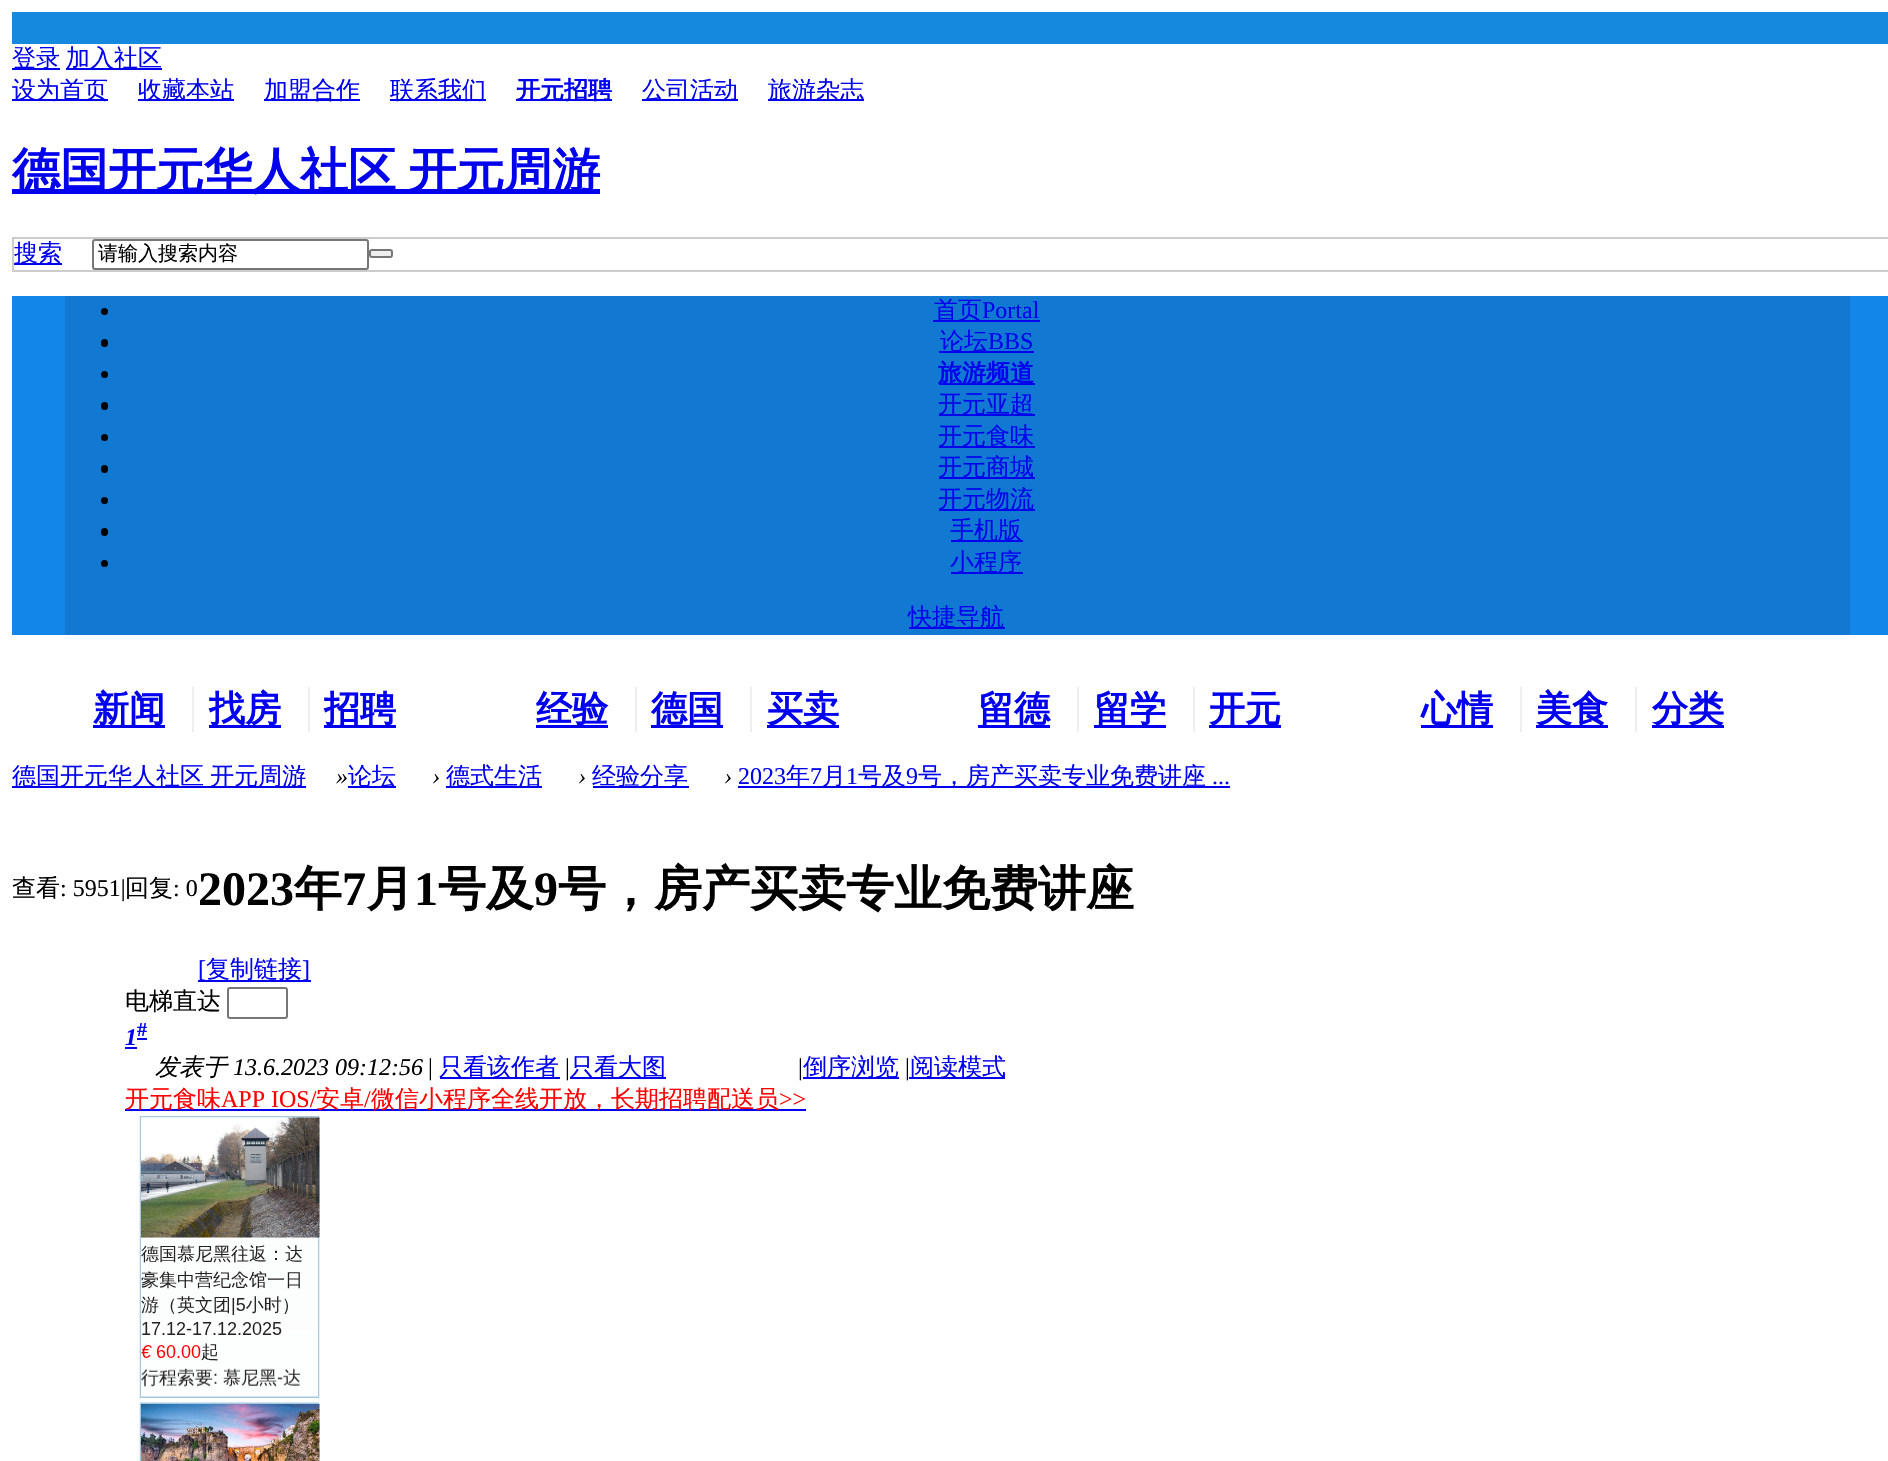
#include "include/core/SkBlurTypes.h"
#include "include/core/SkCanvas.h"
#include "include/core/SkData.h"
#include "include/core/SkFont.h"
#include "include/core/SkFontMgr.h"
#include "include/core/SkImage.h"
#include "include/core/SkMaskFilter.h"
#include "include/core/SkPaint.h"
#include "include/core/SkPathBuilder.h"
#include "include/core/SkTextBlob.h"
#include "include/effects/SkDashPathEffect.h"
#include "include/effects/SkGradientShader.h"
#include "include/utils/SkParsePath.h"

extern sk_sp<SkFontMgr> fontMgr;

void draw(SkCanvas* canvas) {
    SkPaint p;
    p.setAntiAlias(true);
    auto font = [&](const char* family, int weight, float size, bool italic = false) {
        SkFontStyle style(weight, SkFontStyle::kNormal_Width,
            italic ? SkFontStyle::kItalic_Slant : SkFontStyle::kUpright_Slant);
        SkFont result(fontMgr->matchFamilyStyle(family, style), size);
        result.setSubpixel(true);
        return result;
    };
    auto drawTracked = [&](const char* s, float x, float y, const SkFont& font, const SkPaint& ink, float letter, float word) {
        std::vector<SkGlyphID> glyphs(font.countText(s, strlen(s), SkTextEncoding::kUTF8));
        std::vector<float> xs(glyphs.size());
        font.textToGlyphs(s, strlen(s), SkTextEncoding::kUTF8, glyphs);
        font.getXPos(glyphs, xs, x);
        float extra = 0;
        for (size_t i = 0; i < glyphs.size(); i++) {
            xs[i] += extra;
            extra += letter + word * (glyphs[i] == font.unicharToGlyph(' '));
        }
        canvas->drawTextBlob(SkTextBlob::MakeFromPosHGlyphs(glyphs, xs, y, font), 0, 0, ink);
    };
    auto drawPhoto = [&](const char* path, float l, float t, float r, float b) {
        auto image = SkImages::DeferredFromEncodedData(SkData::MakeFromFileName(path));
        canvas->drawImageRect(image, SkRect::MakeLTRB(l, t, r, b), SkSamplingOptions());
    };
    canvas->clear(0xFFFFFFFF);
    p.setColor(0xFF1489DD);
    canvas->drawRect(SkRect::MakeLTRB(12, 12, 1888, 44), p);
    p.setColor(0xFF0000EE);
    canvas->drawRect(SkRect::MakeLTRB(12, 68, 60, 70), p);
    auto font1 = font("WenQuanYi Zen Hei", 500, 24);
    canvas->drawString("登录", 12, 66, font1, p);
    canvas->drawRect(SkRect::MakeLTRB(66, 68, 162, 70), p);
    canvas->drawString("加入社区", 66, 66, font1, p);
    canvas->drawRect(SkRect::MakeLTRB(12, 99, 108, 101), p);
    canvas->drawString("设为首页", 12, 98, font1, p);
    canvas->drawRect(SkRect::MakeLTRB(138, 99, 234, 101), p);
    canvas->drawString("收藏本站", 138, 98, font1, p);
    canvas->drawRect(SkRect::MakeLTRB(264, 99, 360, 101), p);
    canvas->drawString("加盟合作", 264, 98, font1, p);
    canvas->drawRect(SkRect::MakeLTRB(390, 99, 486, 101), p);
    canvas->drawString("联系我们", 390, 98, font1, p);
    canvas->drawRect(SkRect::MakeLTRB(516, 99, 612, 101), p);
    auto font2 = font("WenQuanYi Zen Hei", 700, 24);
    canvas->drawString("开元招聘", 516, 98, font2, p);
    canvas->drawRect(SkRect::MakeLTRB(642, 99, 738, 101), p);
    canvas->drawString("公司活动", 642, 98, font1, p);
    canvas->drawRect(SkRect::MakeLTRB(768, 99, 864, 101), p);
    canvas->drawString("旅游杂志", 768, 98, font1, p);
    canvas->drawRect(SkRect::MakeLTRB(12, 189, 600, 194), p);
    auto font3 = font("WenQuanYi Zen Hei", 700, 48);
    drawTracked("德国开元华人社区 开元周游", 12, 187, font3, p, 0, -2);
    p.setStyle(SkPaint::kStroke_Style);
    p.setStrokeWidth(2);
    p.setColor(0xFFCCCCCC);
    canvas->drawRect(SkRect::MakeLTRB(13, 238, 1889, 271), p);
    p.setStyle(SkPaint::kFill_Style);
    p.setColor(0xFF0000EE);
    canvas->drawRect(SkRect::MakeLTRB(14, 263, 62, 265), p);
    canvas->drawString("搜索", 14, 261, font1, p);
    p.setStyle(SkPaint::kStroke_Style);
    p.setColor(0xFF767676);
    canvas->drawRoundRect(SkRect::MakeLTRB(93, 240, 368, 269), 2, 2, p);
    auto font4 = font("WenQuanYi Zen Hei", 500, 20);
    p.setStyle(SkPaint::kFill_Style);
    p.setColor(0xFF000000);
    canvas->drawString("请输入搜索内容", 98, 260, font4, p);
    p.setColor(0xFFEFEFEF);
    canvas->drawRoundRect(SkRect::MakeLTRB(370, 250, 392, 257), 2, 2, p);
    p.setStyle(SkPaint::kStroke_Style);
    p.setColor(0xFF767676);
    canvas->drawRoundRect(SkRect::MakeLTRB(370, 250, 392, 257), 2, 2, p);
    p.setStyle(SkPaint::kFill_Style);
    p.setColor(0xFF1387E9);
    canvas->drawRect(SkRect::MakeLTRB(12, 296, 1888, 635), p);
    p.setColor(0xFF1179D1);
    canvas->drawRect(SkRect::MakeLTRB(65, 296, 1850, 635), p);
    p.setColor(0xFF000000);
    canvas->drawCircle(104.5f, 311.5f, 3.5f, p);
    p.setColor(0xFF0000EE);
    canvas->drawRect(SkRect::MakeLTRB(933, 320, 1040, 322), p);
    canvas->drawString("首页", 934, 318, font1, p);
    auto font5 = font("Liberation Serif", 400, 24);
    canvas->drawString("Portal", 982, 318, font5, p);
    p.setColor(0xFF000000);
    canvas->drawRoundRect(SkRect::MakeLTRB(101, 339, 108, 347), 3.5f, 3.5f, p);
    p.setColor(0xFF0000EE);
    canvas->drawRect(SkRect::MakeLTRB(939, 351, 1034, 353), p);
    canvas->drawString("论坛", 940, 349, font1, p);
    canvas->drawString("BBS", 988, 349, font5, p);
    p.setColor(0xFF000000);
    canvas->drawCircle(104.5f, 374.5f, 3.5f, p);
    p.setColor(0xFF0000EE);
    canvas->drawRect(SkRect::MakeLTRB(939, 383, 1035, 385), p);
    canvas->drawString("旅游频道", 938, 381, font2, p);
    p.setColor(0xFF000000);
    canvas->drawRoundRect(SkRect::MakeLTRB(101, 402, 108, 410), 3.5f, 3.5f, p);
    p.setColor(0xFF0000EE);
    canvas->drawRect(SkRect::MakeLTRB(939, 414, 1035, 416), p);
    canvas->drawString("开元亚超", 938, 412, font1, p);
    p.setColor(0xFF000000);
    canvas->drawCircle(104.5f, 437.5f, 3.5f, p);
    p.setColor(0xFF0000EE);
    canvas->drawRect(SkRect::MakeLTRB(939, 446, 1035, 448), p);
    canvas->drawString("开元食味", 938, 444, font1, p);
    p.setColor(0xFF000000);
    canvas->drawRoundRect(SkRect::MakeLTRB(101, 465, 108, 473), 3.5f, 3.5f, p);
    p.setColor(0xFF0000EE);
    canvas->drawRect(SkRect::MakeLTRB(939, 477, 1035, 479), p);
    canvas->drawString("开元商城", 938, 475, font1, p);
    p.setColor(0xFF000000);
    canvas->drawCircle(104.5f, 500.5f, 3.5f, p);
    p.setColor(0xFF0000EE);
    canvas->drawRect(SkRect::MakeLTRB(939, 509, 1035, 511), p);
    canvas->drawString("开元物流", 938, 507, font1, p);
    p.setColor(0xFF000000);
    canvas->drawRoundRect(SkRect::MakeLTRB(101, 528, 108, 536), 3.5f, 3.5f, p);
    p.setColor(0xFF0000EE);
    canvas->drawRect(SkRect::MakeLTRB(951, 540, 1023, 542), p);
    canvas->drawString("手机版", 950, 538, font1, p);
    p.setColor(0xFF000000);
    canvas->drawCircle(104.5f, 563.5f, 3.5f, p);
    p.setColor(0xFF0000EE);
    canvas->drawRect(SkRect::MakeLTRB(951, 572, 1023, 574), p);
    canvas->drawString("小程序", 950, 570, font1, p);
    canvas->drawRect(SkRect::MakeLTRB(909, 627, 1005, 629), p);
    canvas->drawString("快捷导航", 908, 625, font1, p);
    p.setColor(0xFFEEEEEE);
    canvas->drawRect(SkRect::MakeLTRB(192, 687, 194, 732), p);
    p.setColor(0xFF0000EE);
    canvas->drawRect(SkRect::MakeLTRB(93, 725, 165, 728), p);
    auto font6 = font("WenQuanYi Zen Hei", 700, 36);
    canvas->drawString("新闻", 93, 721, font6, p);
    p.setColor(0xFFEEEEEE);
    canvas->drawRect(SkRect::MakeLTRB(308, 687, 310, 732), p);
    p.setColor(0xFF0000EE);
    canvas->drawRect(SkRect::MakeLTRB(209, 725, 281, 728), p);
    canvas->drawString("找房", 209, 721, font6, p);
    canvas->drawRect(SkRect::MakeLTRB(324, 725, 396, 728), p);
    canvas->drawString("招聘", 324, 721, font6, p);
    p.setColor(0xFFEEEEEE);
    canvas->drawRect(SkRect::MakeLTRB(635, 687, 637, 732), p);
    p.setColor(0xFF0000EE);
    canvas->drawRect(SkRect::MakeLTRB(536, 725, 608, 728), p);
    canvas->drawString("经验", 536, 721, font6, p);
    p.setColor(0xFFEEEEEE);
    canvas->drawRect(SkRect::MakeLTRB(750, 687, 752, 732), p);
    p.setColor(0xFF0000EE);
    canvas->drawRect(SkRect::MakeLTRB(651, 725, 723, 728), p);
    canvas->drawString("德国", 651, 721, font6, p);
    canvas->drawRect(SkRect::MakeLTRB(767, 725, 839, 728), p);
    canvas->drawString("买卖", 767, 721, font6, p);
    p.setColor(0xFFEEEEEE);
    canvas->drawRect(SkRect::MakeLTRB(1077, 687, 1079, 732), p);
    p.setColor(0xFF0000EE);
    canvas->drawRect(SkRect::MakeLTRB(978, 725, 1050, 728), p);
    canvas->drawString("留德", 978, 721, font6, p);
    p.setColor(0xFFEEEEEE);
    canvas->drawRect(SkRect::MakeLTRB(1193, 687, 1195, 732), p);
    p.setColor(0xFF0000EE);
    canvas->drawRect(SkRect::MakeLTRB(1094, 725, 1166, 728), p);
    canvas->drawString("留学", 1094, 721, font6, p);
    canvas->drawRect(SkRect::MakeLTRB(1209, 725, 1281, 728), p);
    canvas->drawString("开元", 1209, 721, font6, p);
    p.setColor(0xFFEEEEEE);
    canvas->drawRect(SkRect::MakeLTRB(1520, 687, 1522, 732), p);
    p.setColor(0xFF0000EE);
    canvas->drawRect(SkRect::MakeLTRB(1421, 725, 1493, 728), p);
    canvas->drawString("心情", 1421, 721, font6, p);
    p.setColor(0xFFEEEEEE);
    canvas->drawRect(SkRect::MakeLTRB(1635, 687, 1637, 732), p);
    p.setColor(0xFF0000EE);
    canvas->drawRect(SkRect::MakeLTRB(1536, 725, 1608, 728), p);
    canvas->drawString("美食", 1536, 721, font6, p);
    canvas->drawRect(SkRect::MakeLTRB(1652, 725, 1724, 728), p);
    canvas->drawString("分类", 1652, 721, font6, p);
    canvas->drawRect(SkRect::MakeLTRB(12, 786, 306, 788), p);
    drawTracked("德国开元华人社区 开元周游", 12, 784, font1, p, 0, -1);
    auto font7 = font("Liberation Serif", 400, 24, true);
    p.setColor(0xFF000000);
    canvas->drawString("»", 336, 784, font7, p);
    p.setColor(0xFF0000EE);
    canvas->drawRect(SkRect::MakeLTRB(348, 786, 396, 788), p);
    canvas->drawString("论坛", 348, 784, font1, p);
    p.setColor(0xFF000000);
    canvas->drawString("›", 432, 784, font7, p);
    p.setColor(0xFF0000EE);
    canvas->drawRect(SkRect::MakeLTRB(446, 786, 542, 788), p);
    canvas->drawString("德式生活", 446, 784, font1, p);
    p.setColor(0xFF000000);
    canvas->drawString("›", 578, 784, font7, p);
    p.setColor(0xFF0000EE);
    canvas->drawRect(SkRect::MakeLTRB(593, 786, 689, 788), p);
    canvas->drawString("经验分享", 592, 784, font1, p);
    p.setColor(0xFF000000);
    canvas->drawString("›", 724, 784, font7, p);
    p.setColor(0xFF0000EE);
    canvas->drawString("2023", 738, 784, font5, p);
    canvas->drawRect(SkRect::MakeLTRB(738, 786, 1230, 788), p);
    canvas->drawString("年", 786, 784, font1, p);
    canvas->drawString("7", 810, 784, font5, p);
    canvas->drawString("月", 822, 784, font1, p);
    canvas->drawString("1", 846, 784, font5, p);
    canvas->drawString("号及", 858, 784, font1, p);
    canvas->drawString("9", 906, 784, font5, p);
    canvas->drawString("号，房产买卖专业免费讲座", 918, 784, font1, p);
    canvas->drawString("...", 1212, 784, font5, p);
    p.setColor(0xFF000000);
    canvas->drawString("查看", 12, 896, font1, p);
    canvas->drawString(": 5951|", 60, 896, font5, p);
    canvas->drawString("回复", 125, 896, font1, p);
    canvas->drawString(": 0", 173, 896, font5, p);
    auto font8 = font("Liberation Serif", 700, 48);
    canvas->drawString("2023", 198, 905, font8, p);
    canvas->drawString("年", 294, 905, font3, p);
    canvas->drawString("7", 342, 905, font8, p);
    canvas->drawString("月", 366, 905, font3, p);
    canvas->drawString("1", 414, 905, font8, p);
    canvas->drawString("号及", 438, 905, font3, p);
    canvas->drawString("9", 534, 905, font8, p);
    canvas->drawString("号，房产买卖专业免费讲座", 558, 905, font3, p);
    p.setColor(0xFF0000EE);
    canvas->drawRect(SkRect::MakeLTRB(198, 980, 311, 982), p);
    canvas->drawString("[", 198, 977, font5, p);
    canvas->drawString("复制链接", 206, 977, font1, p);
    canvas->drawString("]", 302, 977, font5, p);
    p.setColor(0xFF000000);
    canvas->drawString("电梯直达", 125, 1009, font1, p);
    p.setStyle(SkPaint::kStroke_Style);
    p.setColor(0xFF767676);
    canvas->drawRoundRect(SkRect::MakeLTRB(228, 988, 287, 1018), 2, 2, p);
    auto font9 = font("Liberation Serif", 700, 24, true);
    p.setStyle(SkPaint::kFill_Style);
    p.setColor(0xFF0000EE);
    canvas->drawString("1", 125, 1045, font9, p);
    canvas->drawRect(SkRect::MakeLTRB(125, 1047, 137, 1049), p);
    canvas->drawRect(SkRect::MakeLTRB(137, 1038, 147, 1040), p);
    auto font10 = font("Liberation Serif", 700, 20);
    canvas->drawString("#", 137, 1036, font10, p);
    auto font11 = font("WenQuanYi Zen Hei", 500, 24, true);
    p.setColor(0xFF000000);
    canvas->drawString("发表于", 155, 1075, font11, p);
    canvas->drawString("13.6.2023 09:12:56", 233, 1075, font7, p);
    canvas->drawString("|", 428, 1075, font5, p);
    p.setColor(0xFF0000EE);
    canvas->drawRect(SkRect::MakeLTRB(440, 1077, 560, 1079), p);
    canvas->drawString("只看该作者", 439, 1075, font1, p);
    p.setColor(0xFF000000);
    canvas->drawString("|", 565, 1075, font5, p);
    p.setColor(0xFF0000EE);
    canvas->drawRect(SkRect::MakeLTRB(570, 1077, 666, 1079), p);
    canvas->drawString("只看大图", 570, 1075, font1, p);
    p.setColor(0xFF000000);
    canvas->drawString("|", 798, 1075, font5, p);
    p.setColor(0xFF0000EE);
    canvas->drawRect(SkRect::MakeLTRB(803, 1077, 899, 1079), p);
    canvas->drawString("倒序浏览", 803, 1075, font1, p);
    p.setColor(0xFF000000);
    canvas->drawString("|", 905, 1075, font5, p);
    p.setColor(0xFF0000EE);
    canvas->drawRect(SkRect::MakeLTRB(909, 1077, 1005, 1079), p);
    canvas->drawString("阅读模式", 910, 1075, font1, p);
    canvas->drawRect(SkRect::MakeLTRB(125, 1109, 806, 1111), p);
    p.setColor(0xFFFF0000);
    canvas->drawString("开元食味", 125, 1107, font1, p);
    canvas->drawString("APP IOS/", 221, 1107, font5, p);
    canvas->drawString("安卓", 316, 1107, font1, p);
    canvas->drawString("/", 364, 1107, font5, p);
    canvas->drawString("微信小程序全线开放，长期招聘配送员", 371, 1107, font1, p);
    canvas->drawString(">>", 779, 1107, font5, p);
    drawPhoto("media/1.png", 139, 1116, 320, 1461);
}
